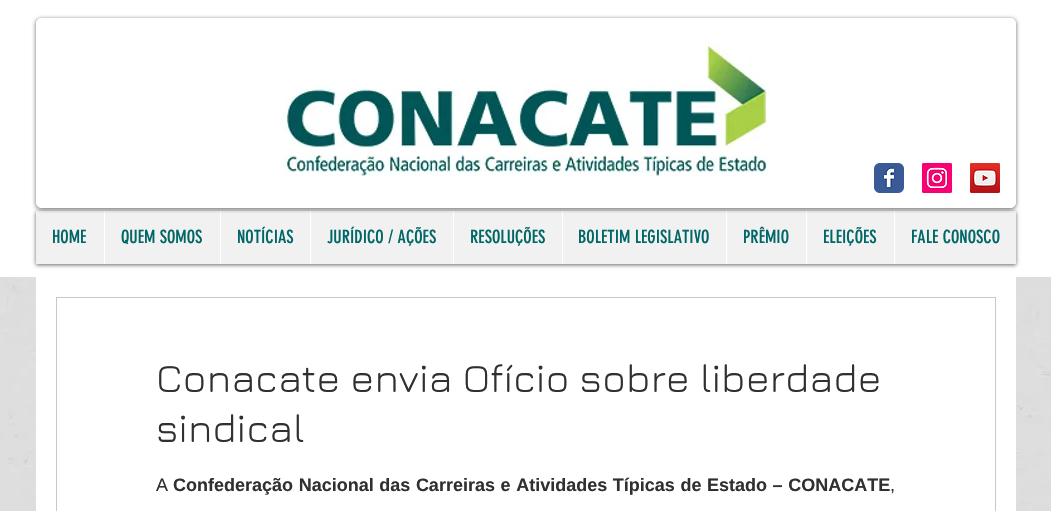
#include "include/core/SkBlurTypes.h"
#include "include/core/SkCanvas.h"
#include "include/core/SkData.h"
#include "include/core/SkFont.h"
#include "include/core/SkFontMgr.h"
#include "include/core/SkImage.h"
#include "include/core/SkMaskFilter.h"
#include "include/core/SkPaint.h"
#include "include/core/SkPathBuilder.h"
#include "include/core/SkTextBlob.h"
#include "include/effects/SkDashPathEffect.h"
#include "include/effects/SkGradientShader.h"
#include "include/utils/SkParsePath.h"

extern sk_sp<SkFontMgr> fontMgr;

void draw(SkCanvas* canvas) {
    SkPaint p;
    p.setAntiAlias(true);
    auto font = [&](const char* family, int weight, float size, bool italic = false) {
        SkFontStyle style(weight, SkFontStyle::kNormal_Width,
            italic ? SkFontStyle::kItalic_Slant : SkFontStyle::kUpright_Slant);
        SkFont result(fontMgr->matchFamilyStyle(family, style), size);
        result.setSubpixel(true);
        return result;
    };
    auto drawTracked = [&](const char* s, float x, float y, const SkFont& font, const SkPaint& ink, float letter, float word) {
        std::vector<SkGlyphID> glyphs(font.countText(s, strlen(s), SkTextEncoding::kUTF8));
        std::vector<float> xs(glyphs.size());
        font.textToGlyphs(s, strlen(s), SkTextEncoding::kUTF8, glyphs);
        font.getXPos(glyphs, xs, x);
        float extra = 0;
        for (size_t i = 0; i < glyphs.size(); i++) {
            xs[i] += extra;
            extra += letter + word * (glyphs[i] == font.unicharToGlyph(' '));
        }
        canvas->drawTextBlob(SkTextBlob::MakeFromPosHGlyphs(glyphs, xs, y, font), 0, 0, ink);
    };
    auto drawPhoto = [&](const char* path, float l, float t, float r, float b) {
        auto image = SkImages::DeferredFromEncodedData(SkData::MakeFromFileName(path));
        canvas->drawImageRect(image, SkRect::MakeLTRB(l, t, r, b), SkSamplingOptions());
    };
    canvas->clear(0xFFFFFFFF);
    p.setColor(0x99000000);
    p.setMaskFilter(SkMaskFilter::MakeBlur(kNormal_SkBlurStyle, 2));
    canvas->drawRect(SkRect::MakeLTRB(36, 212, 1016, 265), p);
    p.setMaskFilter(nullptr);
    {
        const struct { float l, t, r, b; SkColor color; } items[] = {
            {36, 211, 1016, 264, 0xFFF1F1F1},
            {104, 211, 105, 264, 0xFFFFFFFF},
            {220, 211, 221, 264, 0xFFFFFFFF},
            {310, 211, 311, 264, 0xFFFFFFFF},
            {453, 211, 454, 264, 0xFFFFFFFF},
            {562, 211, 563, 264, 0xFFFFFFFF},
            {726, 211, 727, 264, 0xFFFFFFFF},
            {806, 211, 807, 264, 0xFFFFFFFF},
            {894, 211, 895, 264, 0xFFFFFFFF},
        };
        for (auto [l, t, r, b, color] : items) {
            p.setColor(color);
            canvas->drawRect(SkRect::MakeLTRB(l, t, r, b), p);
        }
    }
    p.setColor(0x99000000);
    p.setMaskFilter(SkMaskFilter::MakeBlur(kNormal_SkBlurStyle, 2));
    canvas->drawRoundRect(SkRect::MakeLTRB(36, 19, 1016, 209), 5, 5, p);
    p.setMaskFilter(nullptr);
    p.setColor(0xFFFFFFFF);
    canvas->drawRoundRect(SkRect::MakeLTRB(36.5f, 18.5f, 1015.5f, 207.5f), 4.5f, 4.5f, p);
    p.setStyle(SkPaint::kStroke_Style);
    p.setStrokeWidth(1);
    canvas->drawRoundRect(SkRect::MakeLTRB(36.5f, 18.5f, 1015.5f, 207.5f), 4.5f, 4.5f, p);
    drawPhoto("media/1.png", 283, 44, 770, 176);
    drawPhoto("media/2.png", 874, 163, 904, 193);
    drawPhoto("media/3.png", 922, 163, 952, 193);
    drawPhoto("media/4.png", 970, 163, 1000, 193);
    auto font1 = font("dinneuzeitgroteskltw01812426", 400, 18);
    p.setStyle(SkPaint::kFill_Style);
    p.setColor(0xFF006666);
    {
        const struct { const char* s; float x, y; } items[] = {
            {"HOME", 52, 243},
            {"QUEM SOMOS", 121, 243},
            {"NOTÍCIAS", 237, 243},
            {"JURÍDICO / AÇÕES", 327, 243},
            {"RESOLUÇÕES", 470, 243},
            {"BOLETIM LEGISLATIVO", 578, 243},
            {"PRÊMIO", 743, 243},
            {"ELEIÇÕES", 823, 243},
            {"FALE CONOSCO", 911, 243},
        };
        for (auto [s, x, y] : items) {
            canvas->drawString(s, x, y, font1, p);
        }
    }
    drawPhoto("media/5.png", 0, 277, 1051, 511);
    p.setColor(0xFFFFFFFF);
    canvas->drawRect(SkRect::MakeLTRB(36, 277, 1016, 511), p);
    p.setStyle(SkPaint::kStroke_Style);
    p.setColor(0xFFC8C8C8);
    canvas->drawRect(SkRect::MakeLTRB(56.5f, 297.5f, 995.5f, 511.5f), p);
    auto font2 = font("Jura", 400, 40);
    p.setStyle(SkPaint::kFill_Style);
    p.setColor(0xFF303030);
    canvas->drawString("Conacate envia Ofício sobre liberdade", 156, 392, font2, p);
    canvas->drawString("sindical", 156, 442, font2, p);
    auto font3 = font("Liberation Sans", 400, 18);
    canvas->drawString("A", 156, 491, font3, p);
    auto font4 = font("Liberation Sans", 700, 18);
    drawTracked("Confederação Nacional das Carreiras e Atividades Típicas de Estado – CONACATE", 173, 491, font4, p, 0, 0.6f);
    canvas->drawString(",", 890, 491, font3, p);
}
